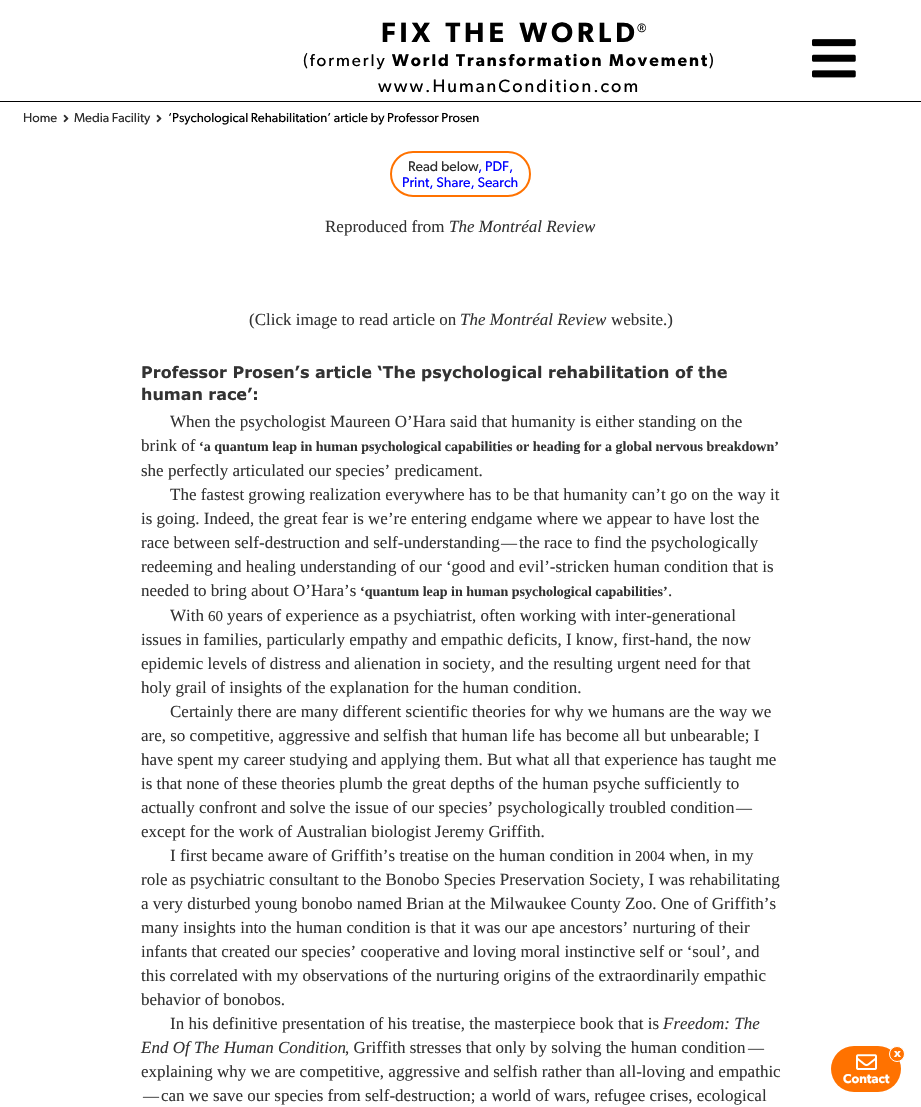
#include "include/core/SkBlurTypes.h"
#include "include/core/SkCanvas.h"
#include "include/core/SkData.h"
#include "include/core/SkFont.h"
#include "include/core/SkFontMgr.h"
#include "include/core/SkImage.h"
#include "include/core/SkMaskFilter.h"
#include "include/core/SkPaint.h"
#include "include/core/SkPathBuilder.h"
#include "include/core/SkTextBlob.h"
#include "include/effects/SkDashPathEffect.h"
#include "include/effects/SkGradientShader.h"
#include "include/utils/SkParsePath.h"

extern sk_sp<SkFontMgr> fontMgr;

void draw(SkCanvas* canvas) {
    SkPaint p;
    p.setAntiAlias(true);
    auto font = [&](const char* family, int weight, float size, bool italic = false) {
        SkFontStyle style(weight, SkFontStyle::kNormal_Width,
            italic ? SkFontStyle::kItalic_Slant : SkFontStyle::kUpright_Slant);
        SkFont result(fontMgr->matchFamilyStyle(family, style), size);
        result.setSubpixel(true);
        return result;
    };
    auto drawTracked = [&](const char* s, float x, float y, const SkFont& font, const SkPaint& ink, float letter, float word) {
        std::vector<SkGlyphID> glyphs(font.countText(s, strlen(s), SkTextEncoding::kUTF8));
        std::vector<float> xs(glyphs.size());
        font.textToGlyphs(s, strlen(s), SkTextEncoding::kUTF8, glyphs);
        font.getXPos(glyphs, xs, x);
        float extra = 0;
        for (size_t i = 0; i < glyphs.size(); i++) {
            xs[i] += extra;
            extra += letter + word * (glyphs[i] == font.unicharToGlyph(' '));
        }
        canvas->drawTextBlob(SkTextBlob::MakeFromPosHGlyphs(glyphs, xs, y, font), 0, 0, ink);
    };
    auto drawPhoto = [&](const char* path, float l, float t, float r, float b) {
        auto image = SkImages::DeferredFromEncodedData(SkData::MakeFromFileName(path));
        canvas->drawImageRect(image, SkRect::MakeLTRB(l, t, r, b), SkSamplingOptions());
    };
    canvas->clear(0xFFFFFFFF);
    auto font1 = font("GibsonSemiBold", 400, 28);
    p.setColor(0xFF000000);
    drawTracked("FIX THE WORLD", 381, 42, font1, p, 4, 2);
    auto font2 = font("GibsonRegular", 400, 12);
    drawTracked("®", 637, 32, font2, p, 4, 0);
    auto font3 = font("GibsonRegular", 400, 17);
    drawTracked("(formerly", 303, 66, font3, p, 2, 0);
    auto font4 = font("GibsonSemiBold", 400, 17);
    drawTracked("World Transformation Movement", 392, 66, font4, p, 2, 0);
    drawTracked(")", 709, 66, font3, p, 2, 0);
    auto font5 = font("GibsonRegular", 400, 18);
    drawTracked("www.HumanCondition.com", 378, 92, font5, p, 2, 0);
    drawPhoto("media/1.png", 812, 39, 856, 78);
    canvas->drawRect(SkRect::MakeLTRB(0, 101, 921, 102), p);
    auto font6 = font("GibsonRegular", 400, 13);
    p.setColor(0xFF2D2D2D);
    canvas->drawString("Home", 23, 122, font6, p);
    drawPhoto("media/2.png", 63, 114, 69, 123);
    canvas->drawString("Media Facility", 74, 122, font6, p);
    drawPhoto("media/2.png", 156, 114, 162, 123);
    p.setColor(0xFF000000);
    canvas->drawString("‘Psychological Rehabilitation’ article by Professor Prosen", 168, 122, font6, p);
    p.setStyle(SkPaint::kStroke_Style);
    p.setStrokeWidth(2);
    p.setColor(0xFFFF7200);
    canvas->drawRoundRect(SkRect::MakeLTRB(391, 152, 530, 196), 22, 22, p);
    auto font7 = font("GibsonRegular", 400, 14);
    p.setStyle(SkPaint::kFill_Style);
    p.setColor(0xFF2D2D2D);
    canvas->drawString("Read below", 408, 171, font7, p);
    p.setColor(0xFF0000FF);
    canvas->drawString(", PDF,", 478, 171, font7, p);
    canvas->drawString("Print, Share, Search", 402, 187, font7, p);
    auto font8 = font("Liberation Serif", 400, 17);
    p.setColor(0xFF333333);
    canvas->drawString("Reproduced from", 325, 232, font8, p);
    auto font9 = font("Liberation Serif", 400, 17, true);
    canvas->drawString("The Montréal Review", 449, 232, font9, p);
    canvas->drawString("(Click image to read article on", 249, 325, font8, p);
    canvas->drawString("The Montréal Review", 460, 325, font9, p);
    canvas->drawString("website.)", 611, 325, font8, p);
    auto font10 = font("Verdana", 400, 16);
    canvas->drawString("Professor Prosen’s article ‘The psychological rehabilitation of the", 141, 378, font10, p);
    canvas->drawString("human race’:", 141, 400, font10, p);
    canvas->drawString("When the psychologist Maureen O’Hara said that humanity is either standing on the", 170, 427, font8, p);
    canvas->drawString("brink of", 141, 451, font8, p);
    auto font11 = font("Liberation Serif", 700, 14);
    canvas->drawString("‘a quantum leap in human psychological capabilities or heading for a global nervous breakdown’", 199, 451, font11, p);
    {
        const struct { const char* s; float x, y; } items[] = {
            {"she perfectly articulated our species’ predicament.", 141, 476},
            {"The fastest growing realization everywhere has to be that humanity can’t go on the way it", 170, 500},
            {"is going. Indeed, the great fear is we’re entering endgame where we appear to have lost the", 141, 524},
            {"race between self-destruction and self-understanding", 141, 548},
        };
        for (auto [s, x, y] : items) {
            canvas->drawString(s, x, y, font8, p);
        }
    }
    auto font12 = font("Liberation Serif", 400, 16);
    canvas->drawString("—", 501, 548, font12, p);
    {
        const struct { const char* s; float x, y; } items[] = {
            {"the race to find the psychologically", 519, 548},
            {"redeeming and healing understanding of our ‘good and evil’-stricken human condition that is", 141, 572},
            {"needed to bring about O’Hara’s", 141, 596},
        };
        for (auto [s, x, y] : items) {
            canvas->drawString(s, x, y, font8, p);
        }
    }
    canvas->drawString("‘quantum leap in human psychological capabilities’", 360, 596, font11, p);
    canvas->drawString(".", 668, 596, font8, p);
    canvas->drawString("With", 170, 621, font8, p);
    auto font13 = font("Liberation Serif", 400, 15);
    canvas->drawString("60", 208, 621, font13, p);
    {
        const struct { const char* s; float x, y; } items[] = {
            {"years of experience as a psychiatrist, often working with inter-generational", 227, 621},
            {"issues in families, particularly empathy and empathic deficits, I know, first-hand, the now", 141, 645},
            {"epidemic levels of distress and alienation in society, and the resulting urgent need for that", 141, 669},
            {"holy grail of insights of the explanation for the human condition.", 141, 693},
            {"Certainly there are many different scientific theories for why we humans are the way we", 170, 717},
            {"are, so competitive, aggressive and selfish that human life has become all but unbearable; I", 141, 741},
            {"have spent my career studying and applying them. But what all that experience has taught me", 141, 765},
            {"is that none of these theories plumb the great depths of the human psyche sufficiently to", 141, 789},
            {"actually confront and solve the issue of our species’ psychologically troubled condition", 141, 813},
        };
        for (auto [s, x, y] : items) {
            canvas->drawString(s, x, y, font8, p);
        }
    }
    canvas->drawString("—", 736, 813, font12, p);
    canvas->drawString("except for the work of Australian biologist Jeremy Griffith.", 141, 837, font8, p);
    canvas->drawString("I first became aware of Griffith’s treatise on the human condition in", 170, 861, font8, p);
    canvas->drawString("2004", 635, 861, font13, p);
    {
        const struct { const char* s; float x, y; } items[] = {
            {"when, in my", 669, 861},
            {"role as psychiatric consultant to the Bonobo Species Preservation Society, I was rehabilitating", 141, 885},
            {"a very disturbed young bonobo named Brian at the Milwaukee County Zoo. One of Griffith’s", 141, 909},
            {"many insights into the human condition is that it was our ape ancestors’ nurturing of their", 141, 933},
            {"infants that created our species’ cooperative and loving moral instinctive self or ‘soul’, and", 141, 957},
            {"this correlated with my observations of the nurturing origins of the extraordinarily empathic", 141, 981},
            {"behavior of bonobos.", 141, 1005},
            {"In his definitive presentation of his treatise, the masterpiece book that is", 170, 1029},
        };
        for (auto [s, x, y] : items) {
            canvas->drawString(s, x, y, font8, p);
        }
    }
    canvas->drawString("Freedom: The", 663, 1029, font9, p);
    canvas->drawString("End Of The Human Condition", 141, 1053, font9, p);
    canvas->drawString(", Griffith stresses that only by solving the human condition", 345, 1053, font8, p);
    canvas->drawString("—", 748, 1053, font12, p);
    canvas->drawString("explaining why we are competitive, aggressive and selfish rather than all-loving and empathic", 141, 1077, font8, p);
    canvas->drawString("—", 143, 1101, font12, p);
    canvas->drawString("can we save our species from self-destruction; a world of wars, refugee crises, ecological", 161, 1101, font8, p);
    p.setColor(0xFFFF7200);
    canvas->drawRoundRect(SkRect::MakeLTRB(831, 1046, 901, 1092), 23, 23, p);
    canvas->drawCircle(897, 1054, 7.5f, p);
    p.setStyle(SkPaint::kStroke_Style);
    p.setStrokeWidth(1);
    p.setColor(0xFFFFFFFF);
    canvas->drawCircle(897, 1054, 7.5f, p);
    auto font14 = font("GibsonSemiBold", 400, 12);
    p.setStyle(SkPaint::kFill_Style);
    canvas->drawString("x", 894, 1057, font14, p);
    drawPhoto("media/3.png", 856, 1054, 877, 1070);
    auto font15 = font("GibsonSemiBold", 400, 13);
    canvas->drawString("Contact", 843, 1083, font15, p);
}
